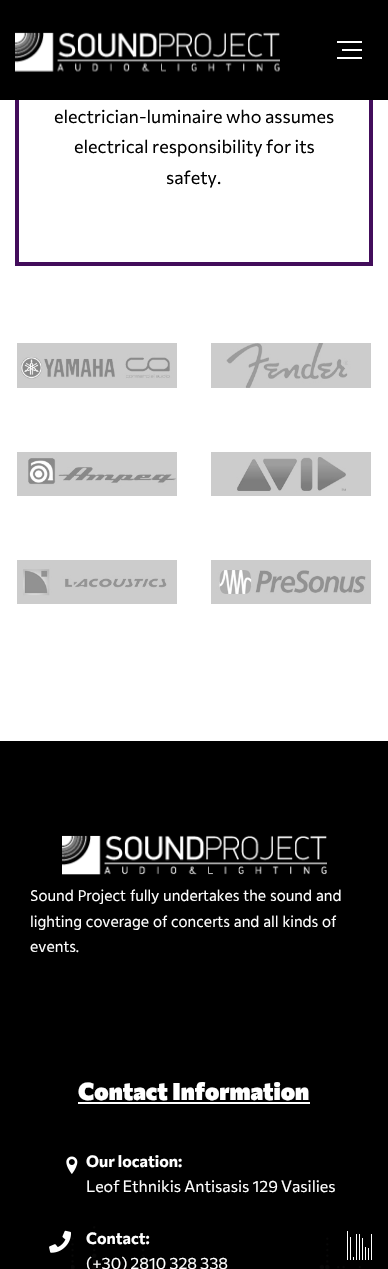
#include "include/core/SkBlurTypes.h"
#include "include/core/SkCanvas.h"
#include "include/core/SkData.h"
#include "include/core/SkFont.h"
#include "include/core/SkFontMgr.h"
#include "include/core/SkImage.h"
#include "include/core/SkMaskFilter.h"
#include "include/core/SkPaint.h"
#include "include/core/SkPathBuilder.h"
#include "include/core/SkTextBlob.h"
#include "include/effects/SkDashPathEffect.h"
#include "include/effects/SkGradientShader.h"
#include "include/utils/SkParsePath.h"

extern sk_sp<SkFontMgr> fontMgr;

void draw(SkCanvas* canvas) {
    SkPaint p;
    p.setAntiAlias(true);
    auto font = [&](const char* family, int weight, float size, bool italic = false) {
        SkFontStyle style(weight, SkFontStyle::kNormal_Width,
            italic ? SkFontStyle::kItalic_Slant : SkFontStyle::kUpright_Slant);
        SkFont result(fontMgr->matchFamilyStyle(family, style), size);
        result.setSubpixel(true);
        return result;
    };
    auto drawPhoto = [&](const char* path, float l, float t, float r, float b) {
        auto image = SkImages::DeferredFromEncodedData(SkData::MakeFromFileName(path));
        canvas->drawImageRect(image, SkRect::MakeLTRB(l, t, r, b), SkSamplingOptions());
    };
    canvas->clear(0xFFFFFFFF);
    p.setStyle(SkPaint::kStroke_Style);
    p.setStrokeWidth(4);
    p.setColor(0xFF420D5B);
    canvas->drawRect(SkRect::MakeLTRB(17, -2, 371, 264), p);
    p.setStyle(SkPaint::kFill_Style);
    p.setColor(0xFF000000);
    canvas->drawRect(SkRect::MakeLTRB(0, 0, 388, 100), p);
    drawPhoto("media/1.png", 15, 32, 280, 72);
    {
        const struct { float l, t, r, b; SkColor color; } items[] = {
            {337, 41, 362, 43, 0xFFFFFFFF},
            {342, 49, 362, 51, 0xFFFFFFFF},
            {337, 57, 362, 59, 0xFFFFFFFF},
        };
        for (auto [l, t, r, b, color] : items) {
            p.setColor(color);
            canvas->drawRect(SkRect::MakeLTRB(l, t, r, b), p);
        }
    }
    auto font1 = font("Commissioner", 400, 18);
    p.setColor(0xFF000000);
    {
        const struct { const char* s; float x, y; } items[] = {
            {"electrician-luminaire who assumes", 54, 123},
            {"electrical responsibility for its", 74, 153},
            {"safety.", 166, 184},
        };
        for (auto [s, x, y] : items) {
            canvas->drawString(s, x, y, font1, p);
        }
    }
    drawPhoto("media/2.png", 17, 343, 177, 388);
    drawPhoto("media/3.png", 211, 343, 371, 388);
    drawPhoto("media/4.png", 17, 452, 177, 496);
    drawPhoto("media/5.png", 211, 452, 371, 496);
    drawPhoto("media/6.png", 17, 560, 177, 604);
    drawPhoto("media/7.png", 211, 560, 371, 604);
    canvas->drawRect(SkRect::MakeLTRB(0, 741, 388, 1269), p);
    drawPhoto("media/8.png", 71, 1226, 361, 1269);
    drawPhoto("media/9.png", 62, 835, 327, 875);
    auto font2 = font("Hind", 400, 16);
    p.setColor(0xFFFFFFFF);
    {
        const struct { const char* s; float x, y; } items[] = {
            {"Sound Project fully undertakes the sound and", 30, 901},
            {"lighting coverage of concerts and all kinds of", 30, 927},
            {"events.", 30, 952},
        };
        for (auto [s, x, y] : items) {
            canvas->drawString(s, x, y, font2, p);
        }
    }
    auto font3 = font("Commissioner", 900, 24);
    canvas->drawString("Contact Information", 78, 1100, font3, p);
    canvas->drawRect(SkRect::MakeLTRB(78, 1102, 310, 1104), p);
    drawPhoto("media/10.png", 66, 1156, 78, 1174);
    auto font4 = font("Commissioner", 700, 16);
    canvas->drawString("Our location:", 86, 1167, font4, p);
    auto font5 = font("Commissioner", 400, 16);
    canvas->drawString("Leof Ethnikis Antisasis 129 Vasilies", 86, 1192, font5, p);
    drawPhoto("media/11.png", 49, 1230, 71, 1253);
    canvas->drawString("Contact:", 86, 1244, font4, p);
    canvas->drawString("(+30) 2810 328 338", 86, 1269, font5, p);
    {
        const struct { float l, t, r, b; SkColor color; } items[] = {
            {337, 1237, 361, 1263, 0xFF000000},
            {347, 1231, 348, 1260, 0xFFFFFFFF},
            {350, 1237, 351, 1260, 0xFFFFFFFF},
            {353, 1257, 354, 1260, 0xFFFFFFFF},
            {356, 1234, 357, 1260, 0xFFFFFFFF},
            {359, 1234, 360, 1260, 0xFFFFFFFF},
            {362, 1238, 363, 1260, 0xFFFFFFFF},
            {365, 1247, 366, 1260, 0xFFFFFFFF},
            {368, 1248, 369, 1260, 0xFFFFFFFF},
            {371, 1234, 372, 1260, 0xFFFFFFFF},
        };
        for (auto [l, t, r, b, color] : items) {
            p.setColor(color);
            canvas->drawRect(SkRect::MakeLTRB(l, t, r, b), p);
        }
    }
}
